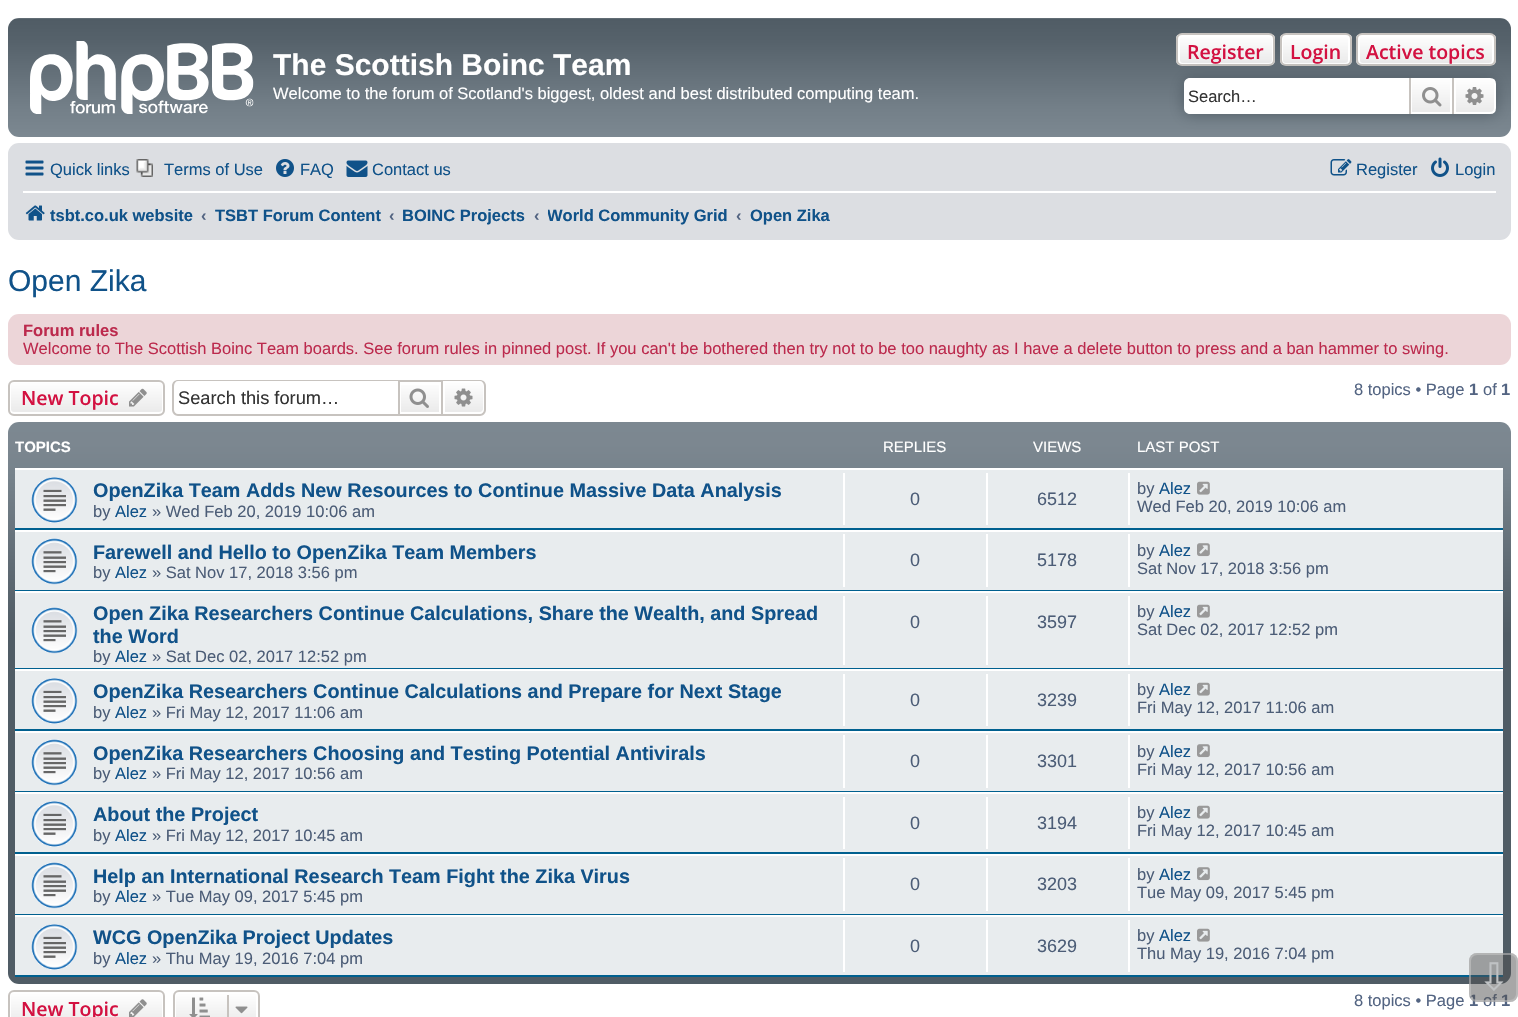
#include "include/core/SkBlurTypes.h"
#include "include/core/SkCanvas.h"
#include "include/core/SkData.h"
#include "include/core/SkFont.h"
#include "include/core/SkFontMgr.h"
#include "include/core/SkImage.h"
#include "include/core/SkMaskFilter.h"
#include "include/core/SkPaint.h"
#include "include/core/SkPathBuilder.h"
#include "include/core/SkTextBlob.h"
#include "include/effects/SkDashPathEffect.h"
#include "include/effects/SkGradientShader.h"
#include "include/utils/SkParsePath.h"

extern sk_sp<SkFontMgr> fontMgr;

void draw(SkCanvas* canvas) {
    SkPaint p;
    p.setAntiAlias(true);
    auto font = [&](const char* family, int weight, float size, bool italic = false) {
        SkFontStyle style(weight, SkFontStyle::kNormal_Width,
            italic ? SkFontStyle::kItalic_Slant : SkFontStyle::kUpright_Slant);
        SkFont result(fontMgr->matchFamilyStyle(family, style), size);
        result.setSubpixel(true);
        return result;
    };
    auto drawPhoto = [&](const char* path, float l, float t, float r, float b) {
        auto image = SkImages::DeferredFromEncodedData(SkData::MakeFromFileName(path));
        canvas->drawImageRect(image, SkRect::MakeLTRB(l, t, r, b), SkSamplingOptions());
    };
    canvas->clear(0xFFFFFFFF);
    {
        const SkColor colors[] = {0xFF6E777F, 0xFF505C65, 0xFF56626B, 0xFF737F88, 0xFF7C8891};
        const float stops[] = {0, 0.01f, 0.2f, 0.75f, 1};
        const SkPoint ends[] = {{759, 18}, {759, 137}};
        p.setShader(SkGradientShader::MakeLinear(ends, colors, stops, 5, SkTileMode::kClamp));
        p.setAlpha(255);
    }
    canvas->drawRoundRect(SkRect::MakeLTRB(8, 18, 1511, 137), 11, 11, p);
    drawPhoto("media/1.png", 30, 41, 254, 114);
    auto font1 = font("Liberation Sans", 700, 30);
    p.setShader(nullptr);
    p.setColor(0xFFFFFFFF);
    canvas->drawString("The Scottish Boinc Team", 273, 75, font1, p);
    auto font2 = font("Liberation Sans", 400, 16.5f);
    canvas->drawString("Welcome to the forum of Scotland's biggest, oldest and best distributed computing team.", 273, 99, font2, p);
    canvas->save();
    canvas->clipPath(SkPathBuilder().moveTo(1182, 33).lineTo(1269, 33).cubicTo(1272.5f, 33, 1275, 35.5f, 1275, 39).lineTo(1275, 60).cubicTo(1275, 63.5f, 1272.5f, 66, 1269, 66).lineTo(1182, 66).cubicTo(1178.5f, 66, 1176, 63.5f, 1176, 60).lineTo(1176, 39).cubicTo(1176, 35.5f, 1178.5f, 33, 1182, 33).close().detach(), true);
    {
        const SkColor colors[] = {0xFFFFFFFF, 0xFFE9E9E9};
        const float stops[] = {0, 1};
        const SkPoint ends[] = {{1226, 34}, {1226, 65}};
        p.setShader(SkGradientShader::MakeLinear(ends, colors, stops, 2, SkTileMode::kClamp));
        p.setAlpha(255);
    }
    canvas->drawRect(SkRect::MakeLTRB(1176, 35, 1275, 65), p);
    canvas->restore();
    p.setStyle(SkPaint::kStroke_Style);
    p.setStrokeWidth(2);
    p.setShader(nullptr);
    p.setColor(0xFFFFFFFF);
    canvas->drawRoundRect(SkRect::MakeLTRB(1179, 36, 1273, 64), 4, 4, p);
    p.setColor(0xFFC7C3BF);
    canvas->drawRoundRect(SkRect::MakeLTRB(1177, 34, 1274, 65), 5, 5, p);
    auto font3 = font("Open Sans", 600, 19.5f);
    p.setStyle(SkPaint::kFill_Style);
    p.setColor(0xFFD31141);
    canvas->drawString("Register", 1187, 59, font3, p);
    canvas->save();
    canvas->clipPath(SkPathBuilder().moveTo(1286, 33).lineTo(1346, 33).cubicTo(1349.5f, 33, 1352, 35.5f, 1352, 39).lineTo(1352, 60).cubicTo(1352, 63.5f, 1349.5f, 66, 1346, 66).lineTo(1286, 66).cubicTo(1282.5f, 66, 1280, 63.5f, 1280, 60).lineTo(1280, 39).cubicTo(1280, 35.5f, 1282.5f, 33, 1286, 33).close().detach(), true);
    {
        const SkColor colors[] = {0xFFFFFFFF, 0xFFE9E9E9};
        const float stops[] = {0, 1};
        const SkPoint ends[] = {{1316, 34}, {1316, 65}};
        p.setShader(SkGradientShader::MakeLinear(ends, colors, stops, 2, SkTileMode::kClamp));
        p.setAlpha(255);
    }
    canvas->drawRect(SkRect::MakeLTRB(1280, 35, 1352, 65), p);
    canvas->restore();
    p.setStyle(SkPaint::kStroke_Style);
    p.setShader(nullptr);
    p.setColor(0xFFFFFFFF);
    canvas->drawRoundRect(SkRect::MakeLTRB(1282, 36, 1349, 64), 4, 4, p);
    p.setColor(0xFFC7C3BF);
    canvas->drawRoundRect(SkRect::MakeLTRB(1281, 34, 1351, 65), 5, 5, p);
    p.setStyle(SkPaint::kFill_Style);
    p.setColor(0xFFD31141);
    canvas->drawString("Login", 1290, 59, font3, p);
    canvas->save();
    canvas->clipPath(SkPathBuilder().moveTo(1362, 33).lineTo(1490, 33).cubicTo(1493.5f, 33, 1496, 35.5f, 1496, 39).lineTo(1496, 60).cubicTo(1496, 63.5f, 1493.5f, 66, 1490, 66).lineTo(1362, 66).cubicTo(1358.5f, 66, 1356, 63.5f, 1356, 60).lineTo(1356, 39).cubicTo(1356, 35.5f, 1358.5f, 33, 1362, 33).close().detach(), true);
    {
        const SkColor colors[] = {0xFFFFFFFF, 0xFFE9E9E9};
        const float stops[] = {0, 1};
        const SkPoint ends[] = {{1426, 34}, {1426, 65}};
        p.setShader(SkGradientShader::MakeLinear(ends, colors, stops, 2, SkTileMode::kClamp));
        p.setAlpha(255);
    }
    canvas->drawRect(SkRect::MakeLTRB(1356, 35, 1496, 65), p);
    canvas->restore();
    p.setStyle(SkPaint::kStroke_Style);
    p.setShader(nullptr);
    p.setColor(0xFFFFFFFF);
    canvas->drawRoundRect(SkRect::MakeLTRB(1359, 36, 1493, 64), 4, 4, p);
    p.setColor(0xFFC7C3BF);
    canvas->drawRoundRect(SkRect::MakeLTRB(1357, 34, 1495, 65), 5, 5, p);
    p.setStyle(SkPaint::kFill_Style);
    p.setColor(0xFFD31141);
    canvas->drawString("Active topics", 1366, 59, font3, p);
    p.setColor(0xFF505C65);
    p.setMaskFilter(SkMaskFilter::MakeBlur(kNormal_SkBlurStyle, 7.5f));
    canvas->drawRoundRect(SkRect::MakeLTRB(1184, 78, 1496, 114), 6, 6, p);
    p.setMaskFilter(nullptr);
    p.setColor(0xFFFFFFFF);
    canvas->drawPath(SkPathBuilder().moveTo(1190, 78).lineTo(1409, 78).lineTo(1409, 114).lineTo(1190, 114).cubicTo(1186.5f, 114, 1184, 111.5f, 1184, 108).lineTo(1184, 84).cubicTo(1184, 80.5f, 1186.5f, 78, 1190, 78).close().detach(), p);
    p.setColor(0xFF333333);
    canvas->drawString("Search…", 1188, 102, font2, p);
    {
        const SkColor colors[] = {0xFFFFFFFF, 0xFFE9E9E9};
        const float stops[] = {0, 1};
        const SkPoint ends[] = {{1431, 78}, {1431, 114}};
        p.setShader(SkGradientShader::MakeLinear(ends, colors, stops, 2, SkTileMode::kClamp));
        p.setAlpha(255);
    }
    canvas->drawRect(SkRect::MakeLTRB(1412, 80, 1450, 112), p);
    p.setStyle(SkPaint::kStroke_Style);
    p.setShader(nullptr);
    p.setColor(0xFFFFFFFF);
    canvas->drawRect(SkRect::MakeLTRB(1411, 79, 1451, 113), p);
    p.setStyle(SkPaint::kFill_Style);
    p.setColor(0xFFC7C3BF);
    canvas->drawRect(SkRect::MakeLTRB(1452, 78, 1454, 114), p);
    canvas->drawRect(SkRect::MakeLTRB(1409, 78, 1411, 114), p);
    drawPhoto("media/2.png", 1422, 87, 1442, 107);
    {
        const SkColor colors[] = {0xFFFFFFFF, 0xFFE9E9E9};
        const float stops[] = {0, 1};
        const SkPoint ends[] = {{1475, 78}, {1475, 114}};
        p.setShader(SkGradientShader::MakeLinear(ends, colors, stops, 2, SkTileMode::kClamp));
        p.setAlpha(255);
    }
    canvas->drawPath(SkPathBuilder().moveTo(1455, 79).lineTo(1490, 79).cubicTo(1493, 79, 1495, 81, 1495, 84).lineTo(1495, 108).cubicTo(1495, 111, 1493, 113, 1490, 113).lineTo(1455, 113).close().detach(), p);
    p.setStyle(SkPaint::kStroke_Style);
    p.setShader(nullptr);
    p.setColor(0xFFFFFFFF);
    canvas->drawPath(SkPathBuilder().moveTo(1455, 79).lineTo(1490, 79).cubicTo(1493, 79, 1495, 81, 1495, 84).lineTo(1495, 108).cubicTo(1495, 111, 1493, 113, 1490, 113).lineTo(1455, 113).close().detach(), p);
    drawPhoto("media/3.png", 1465, 87, 1484, 105);
    p.setStyle(SkPaint::kFill_Style);
    p.setColor(0xFFDCDEE2);
    canvas->drawRoundRect(SkRect::MakeLTRB(8, 143, 1511, 240), 11, 11, p);
    drawPhoto("media/4.png", 25, 160, 44, 176);
    p.setColor(0xFF105289);
    canvas->drawString("Quick links", 50, 175, font2, p);
    drawPhoto("media/5.png", 136, 159, 153, 177);
    canvas->drawString("Terms of Use", 164, 175, font2, p);
    drawPhoto("media/6.png", 276, 159, 294, 177);
    canvas->drawString("FAQ", 300, 175, font2, p);
    drawPhoto("media/7.png", 346, 160, 368, 177);
    canvas->drawString("Contact us", 372, 175, font2, p);
    drawPhoto("media/8.png", 1330, 159, 1352, 176);
    canvas->drawString("Register", 1356, 175, font2, p);
    drawPhoto("media/9.png", 1431, 157, 1449, 177);
    canvas->drawString("Login", 1455, 175, font2, p);
    p.setColor(0xFFFFFFFF);
    canvas->drawRect(SkRect::MakeLTRB(23, 191, 1496, 193), p);
    drawPhoto("media/10.png", 25, 205, 45, 221);
    auto font4 = font("Liberation Sans", 700, 16.5f);
    p.setColor(0xFF105289);
    canvas->drawString("tsbt.co.uk website", 50, 221, font4, p);
    p.setColor(0xFF536482);
    canvas->drawString("‹", 201, 221, font4, p);
    canvas->save();
    canvas->clipRect(SkRect::MakeLTRB(215, 197, 381, 233));
    p.setColor(0xFF105289);
    canvas->drawString("TSBT Forum Content", 215, 221, font4, p);
    canvas->restore();
    p.setColor(0xFF536482);
    canvas->drawString("‹", 389, 221, font4, p);
    p.setColor(0xFF105289);
    canvas->drawString("BOINC Projects", 402, 221, font4, p);
    p.setColor(0xFF536482);
    canvas->drawString("‹", 534, 221, font4, p);
    canvas->save();
    canvas->clipRect(SkRect::MakeLTRB(548, 197, 728, 233));
    p.setColor(0xFF105289);
    canvas->drawString("World Community Grid", 547, 221, font4, p);
    canvas->restore();
    p.setColor(0xFF536482);
    canvas->drawString("‹", 736, 221, font4, p);
    p.setColor(0xFF105289);
    canvas->drawString("Open Zika", 750, 221, font4, p);
    auto font5 = font("Liberation Sans", 400, 30);
    canvas->drawString("Open Zika", 8, 291, font5, p);
    p.setColor(0xFFECD5D8);
    canvas->drawRoundRect(SkRect::MakeLTRB(8, 314, 1511, 365), 11, 11, p);
    p.setColor(0xFFBC2A4D);
    canvas->drawString("Forum rules", 23, 336, font4, p);
    canvas->drawString("Welcome to The Scottish Boinc Team boards. See forum rules in pinned post. If you can't be bothered then try not to be too naughty as I have a delete button to press and a ban hammer to swing.", 23, 354, font2, p);
    canvas->save();
    canvas->clipPath(SkPathBuilder().moveTo(14, 380).lineTo(159, 380).cubicTo(162.5f, 380, 165, 382.5f, 165, 386).lineTo(165, 410).cubicTo(165, 413.5f, 162.5f, 416, 159, 416).lineTo(14, 416).cubicTo(10.5f, 416, 8, 413.5f, 8, 410).lineTo(8, 386).cubicTo(8, 382.5f, 10.5f, 380, 14, 380).close().detach(), true);
    {
        const SkColor colors[] = {0xFFFFFFFF, 0xFFE9E9E9};
        const float stops[] = {0, 1};
        const SkPoint ends[] = {{86, 381}, {86, 414}};
        p.setShader(SkGradientShader::MakeLinear(ends, colors, stops, 2, SkTileMode::kClamp));
        p.setAlpha(255);
    }
    canvas->drawRect(SkRect::MakeLTRB(8, 381, 165, 414), p);
    canvas->restore();
    p.setStyle(SkPaint::kStroke_Style);
    p.setShader(nullptr);
    p.setColor(0xFFFFFFFF);
    canvas->drawRoundRect(SkRect::MakeLTRB(10, 382, 163, 413), 4, 4, p);
    p.setColor(0xFFC7C3BF);
    canvas->drawRoundRect(SkRect::MakeLTRB(9, 381, 164, 415), 5, 5, p);
    p.setStyle(SkPaint::kFill_Style);
    p.setColor(0xFFD31141);
    canvas->drawString("New Topic", 21, 405, font3, p);
    drawPhoto("media/11.png", 129, 388, 147, 407);
    p.setColor(0xFFC7C3BF);
    canvas->drawPath(SkPathBuilder(SkPathFillType::kEvenOdd).moveTo(178, 380).lineTo(398, 380).lineTo(398, 416).lineTo(178, 416).cubicTo(175, 416, 172, 413, 172, 410).lineTo(172, 386).cubicTo(172, 382, 175, 380, 178, 380).close().moveTo(178, 381).lineTo(398, 381).lineTo(398, 414).lineTo(178, 414).cubicTo(176, 414, 174, 412, 174, 410).lineTo(174, 386).cubicTo(174, 383, 176, 381, 178, 381).close().detach(), p);
    auto font6 = font("Liberation Sans", 400, 18.25f);
    p.setColor(0xFF333333);
    canvas->drawString("Search this forum…", 178, 404, font6, p);
    {
        const SkColor colors[] = {0xFFFFFFFF, 0xFFE9E9E9};
        const float stops[] = {0, 1};
        const SkPoint ends[] = {{420, 381}, {420, 414}};
        p.setShader(SkGradientShader::MakeLinear(ends, colors, stops, 2, SkTileMode::kClamp));
        p.setAlpha(255);
    }
    canvas->drawRect(SkRect::MakeLTRB(401, 385, 439, 412), p);
    p.setStyle(SkPaint::kStroke_Style);
    p.setShader(nullptr);
    p.setColor(0xFFC7C3BF);
    canvas->drawRect(SkRect::MakeLTRB(399, 381, 442, 415), p);
    drawPhoto("media/12.png", 409, 388, 429, 408);
    p.setStyle(SkPaint::kFill_Style);
    {
        const SkColor colors[] = {0xFFFFFFFF, 0xFFE9E9E9};
        const float stops[] = {0, 1};
        const SkPoint ends[] = {{464, 381}, {464, 414}};
        p.setShader(SkGradientShader::MakeLinear(ends, colors, stops, 2, SkTileMode::kClamp));
        p.setAlpha(255);
    }
    canvas->drawPath(SkPathBuilder().moveTo(444, 382).lineTo(480, 382).cubicTo(482, 382, 484, 384, 484, 386).lineTo(484, 409).cubicTo(484, 411, 482, 413, 480, 413).lineTo(444, 413).close().detach(), p);
    p.setStyle(SkPaint::kStroke_Style);
    p.setShader(nullptr);
    p.setColor(0xFFFFFFFF);
    canvas->drawPath(SkPathBuilder().moveTo(444, 382).lineTo(480, 382).cubicTo(482, 382, 484, 384, 484, 386).lineTo(484, 409).cubicTo(484, 411, 482, 413, 480, 413).lineTo(444, 413).close().detach(), p);
    p.setStyle(SkPaint::kFill_Style);
    p.setColor(0xFFC7C3BF);
    canvas->drawPath(SkPathBuilder(SkPathFillType::kEvenOdd).moveTo(442, 380).lineTo(480, 380).cubicTo(483, 380, 486, 382, 486, 386).lineTo(486, 410).cubicTo(486, 413, 483, 416, 480, 416).lineTo(442, 416).close().moveTo(442, 381).lineTo(480, 381).cubicTo(482, 381, 484, 383, 484, 386).lineTo(484, 410).cubicTo(484, 412, 482, 414, 480, 414).lineTo(442, 414).close().detach(), p);
    drawPhoto("media/13.png", 454, 388, 473, 407);
    p.setColor(0xFF536482);
    canvas->drawString("8 topics • Page", 1354, 395, font2, p);
    canvas->drawString("1", 1469, 395, font4, p);
    canvas->drawString("of", 1483, 395, font2, p);
    canvas->drawString("1", 1501, 395, font4, p);
    {
        const SkColor colors[] = {0xFF7C8891, 0xFF7C8790, 0xFF76828B, 0xFF5B666F, 0xFF505C65, 0xFF505C65};
        const float stops[] = {0, 0.04f, 0.1f, 0.29f, 0.38f, 1};
        const SkPoint ends[] = {{759, 421}, {759, 984}};
        p.setShader(SkGradientShader::MakeLinear(ends, colors, stops, 6, SkTileMode::kClamp));
        p.setAlpha(255);
    }
    canvas->drawRoundRect(SkRect::MakeLTRB(8, 422, 1511, 984), 11, 11, p);
    auto font7 = font("Liberation Sans", 700, 15);
    p.setShader(nullptr);
    p.setColor(0xFFFFFFFF);
    canvas->drawString("TOPICS", 15, 452, font7, p);
    auto font8 = font("Liberation Sans", 400, 15);
    {
        const struct { const char* s; float x, y; } items[] = {
            {"REPLIES", 883, 452},
            {"VIEWS", 1033, 452},
            {"LAST POST", 1137, 452},
        };
        for (auto [s, x, y] : items) {
            canvas->drawString(s, x, y, font8, p);
        }
    }
    {
        const struct { float l, t, r, b; SkColor color; } items[] = {
            {15, 470, 1503, 528, 0xFFE8ECEE},
            {15, 468, 1503, 470, 0xFFFFFFFF},
            {15, 528, 1503, 530, 0xFF00608F},
        };
        for (auto [l, t, r, b, color] : items) {
            p.setColor(color);
            canvas->drawRect(SkRect::MakeLTRB(l, t, r, b), p);
        }
    }
    drawPhoto("media/14.png", 31, 477, 78, 523);
    auto font9 = font("Liberation Sans", 700, 19.8f);
    p.setColor(0xFF105289);
    canvas->drawString("OpenZika Team Adds New Resources to Continue Massive Data Analysis", 93, 497, font9, p);
    p.setColor(0xFF4C5D77);
    canvas->drawString("by", 93, 517, font2, p);
    p.setColor(0xFF105289);
    canvas->drawString("Alez", 115, 517, font2, p);
    p.setColor(0xFF4C5D77);
    canvas->drawString("» Wed Feb 20, 2019 10:06 am", 152, 517, font2, p);
    p.setColor(0xFFFFFFFF);
    canvas->drawRect(SkRect::MakeLTRB(843, 473, 845, 525), p);
    auto font10 = font("Liberation Sans", 400, 18);
    p.setColor(0xFF4C5D77);
    canvas->drawString("0", 910, 505, font10, p);
    p.setColor(0xFFFFFFFF);
    canvas->drawRect(SkRect::MakeLTRB(986, 473, 988, 525), p);
    p.setColor(0xFF4C5D77);
    canvas->drawString("6512", 1037, 505, font10, p);
    p.setColor(0xFFFFFFFF);
    canvas->drawRect(SkRect::MakeLTRB(1128, 473, 1130, 525), p);
    p.setColor(0xFF4C5D77);
    canvas->drawString("by", 1137, 494, font2, p);
    p.setColor(0xFF105289);
    canvas->drawString("Alez", 1159, 494, font2, p);
    drawPhoto("media/15.png", 1197, 481, 1210, 495);
    p.setColor(0xFF4C5D77);
    canvas->drawString("Wed Feb 20, 2019 10:06 am", 1137, 512, font2, p);
    {
        const struct { float l, t, r, b; SkColor color; } items[] = {
            {15, 532, 1503, 590, 0xFFE8ECEE},
            {15, 530, 1503, 532, 0xFFFFFFFF},
            {15, 590, 1503, 591, 0xFF00608F},
        };
        for (auto [l, t, r, b, color] : items) {
            p.setColor(color);
            canvas->drawRect(SkRect::MakeLTRB(l, t, r, b), p);
        }
    }
    drawPhoto("media/16.png", 31, 538, 78, 585);
    p.setColor(0xFF105289);
    canvas->drawString("Farewell and Hello to OpenZika Team Members", 93, 559, font9, p);
    p.setColor(0xFF4C5D77);
    canvas->drawString("by", 93, 578, font2, p);
    p.setColor(0xFF105289);
    canvas->drawString("Alez", 115, 578, font2, p);
    p.setColor(0xFF4C5D77);
    canvas->drawString("» Sat Nov 17, 2018 3:56 pm", 152, 578, font2, p);
    p.setColor(0xFFFFFFFF);
    canvas->drawRect(SkRect::MakeLTRB(843, 534, 845, 587), p);
    p.setColor(0xFF4C5D77);
    canvas->drawString("0", 910, 566, font10, p);
    p.setColor(0xFFFFFFFF);
    canvas->drawRect(SkRect::MakeLTRB(986, 534, 988, 587), p);
    p.setColor(0xFF4C5D77);
    canvas->drawString("5178", 1037, 566, font10, p);
    p.setColor(0xFFFFFFFF);
    canvas->drawRect(SkRect::MakeLTRB(1128, 534, 1130, 587), p);
    p.setColor(0xFF4C5D77);
    canvas->drawString("by", 1137, 556, font2, p);
    p.setColor(0xFF105289);
    canvas->drawString("Alez", 1159, 556, font2, p);
    drawPhoto("media/17.png", 1197, 543, 1210, 557);
    p.setColor(0xFF4C5D77);
    canvas->drawString("Sat Nov 17, 2018 3:56 pm", 1137, 574, font2, p);
    {
        const struct { float l, t, r, b; SkColor color; } items[] = {
            {15, 593, 1503, 668, 0xFFE8ECEE},
            {15, 591, 1503, 593, 0xFFFFFFFF},
            {15, 668, 1503, 669, 0xFF00608F},
        };
        for (auto [l, t, r, b, color] : items) {
            p.setColor(color);
            canvas->drawRect(SkRect::MakeLTRB(l, t, r, b), p);
        }
    }
    drawPhoto("media/16.png", 31, 607, 78, 654);
    p.setColor(0xFF105289);
    canvas->drawString("Open Zika Researchers Continue Calculations, Share the Wealth, and Spread", 93, 620, font9, p);
    canvas->drawString("the Word", 93, 643, font9, p);
    canvas->save();
    canvas->clipRect(SkRect::MakeLTRB(15, 596, 1503, 665));
    p.setColor(0xFF4C5D77);
    canvas->drawString("by", 93, 662, font2, p);
    canvas->restore();
    p.setColor(0xFF105289);
    canvas->drawString("Alez", 115, 662, font2, p);
    p.setColor(0xFF4C5D77);
    canvas->drawString("» Sat Dec 02, 2017 12:52 pm", 152, 662, font2, p);
    p.setColor(0xFFFFFFFF);
    canvas->drawRect(SkRect::MakeLTRB(843, 596, 845, 665), p);
    p.setColor(0xFF4C5D77);
    canvas->drawString("0", 910, 628, font10, p);
    p.setColor(0xFFFFFFFF);
    canvas->drawRect(SkRect::MakeLTRB(986, 596, 988, 665), p);
    p.setColor(0xFF4C5D77);
    canvas->drawString("3597", 1037, 628, font10, p);
    p.setColor(0xFFFFFFFF);
    canvas->drawRect(SkRect::MakeLTRB(1128, 596, 1130, 665), p);
    p.setColor(0xFF4C5D77);
    canvas->drawString("by", 1137, 617, font2, p);
    p.setColor(0xFF105289);
    canvas->drawString("Alez", 1159, 617, font2, p);
    drawPhoto("media/15.png", 1197, 604, 1210, 618);
    p.setColor(0xFF4C5D77);
    canvas->drawString("Sat Dec 02, 2017 12:52 pm", 1137, 635, font2, p);
    {
        const struct { float l, t, r, b; SkColor color; } items[] = {
            {15, 671, 1503, 729, 0xFFE8ECEE},
            {15, 669, 1503, 671, 0xFFFFFFFF},
            {15, 729, 1503, 731, 0xFF00608F},
        };
        for (auto [l, t, r, b, color] : items) {
            p.setColor(color);
            canvas->drawRect(SkRect::MakeLTRB(l, t, r, b), p);
        }
    }
    drawPhoto("media/14.png", 31, 678, 78, 724);
    p.setColor(0xFF105289);
    canvas->drawString("OpenZika Researchers Continue Calculations and Prepare for Next Stage", 93, 698, font9, p);
    p.setColor(0xFF4C5D77);
    canvas->drawString("by", 93, 718, font2, p);
    p.setColor(0xFF105289);
    canvas->drawString("Alez", 115, 718, font2, p);
    p.setColor(0xFF4C5D77);
    canvas->drawString("» Fri May 12, 2017 11:06 am", 152, 718, font2, p);
    p.setColor(0xFFFFFFFF);
    canvas->drawRect(SkRect::MakeLTRB(843, 674, 845, 726), p);
    p.setColor(0xFF4C5D77);
    canvas->drawString("0", 910, 706, font10, p);
    p.setColor(0xFFFFFFFF);
    canvas->drawRect(SkRect::MakeLTRB(986, 674, 988, 726), p);
    p.setColor(0xFF4C5D77);
    canvas->drawString("3239", 1037, 706, font10, p);
    p.setColor(0xFFFFFFFF);
    canvas->drawRect(SkRect::MakeLTRB(1128, 674, 1130, 726), p);
    p.setColor(0xFF4C5D77);
    canvas->drawString("by", 1137, 695, font2, p);
    p.setColor(0xFF105289);
    canvas->drawString("Alez", 1159, 695, font2, p);
    drawPhoto("media/15.png", 1197, 682, 1210, 696);
    p.setColor(0xFF4C5D77);
    canvas->drawString("Fri May 12, 2017 11:06 am", 1137, 713, font2, p);
    {
        const struct { float l, t, r, b; SkColor color; } items[] = {
            {15, 733, 1503, 791, 0xFFE8ECEE},
            {15, 731, 1503, 733, 0xFFFFFFFF},
            {15, 791, 1503, 792, 0xFF00608F},
        };
        for (auto [l, t, r, b, color] : items) {
            p.setColor(color);
            canvas->drawRect(SkRect::MakeLTRB(l, t, r, b), p);
        }
    }
    drawPhoto("media/16.png", 31, 739, 78, 786);
    p.setColor(0xFF105289);
    canvas->drawString("OpenZika Researchers Choosing and Testing Potential Antivirals", 93, 760, font9, p);
    p.setColor(0xFF4C5D77);
    canvas->drawString("by", 93, 779, font2, p);
    p.setColor(0xFF105289);
    canvas->drawString("Alez", 115, 779, font2, p);
    p.setColor(0xFF4C5D77);
    canvas->drawString("» Fri May 12, 2017 10:56 am", 152, 779, font2, p);
    p.setColor(0xFFFFFFFF);
    canvas->drawRect(SkRect::MakeLTRB(843, 735, 845, 788), p);
    p.setColor(0xFF4C5D77);
    canvas->drawString("0", 910, 767, font10, p);
    p.setColor(0xFFFFFFFF);
    canvas->drawRect(SkRect::MakeLTRB(986, 735, 988, 788), p);
    p.setColor(0xFF4C5D77);
    canvas->drawString("3301", 1037, 767, font10, p);
    p.setColor(0xFFFFFFFF);
    canvas->drawRect(SkRect::MakeLTRB(1128, 735, 1130, 788), p);
    p.setColor(0xFF4C5D77);
    canvas->drawString("by", 1137, 757, font2, p);
    p.setColor(0xFF105289);
    canvas->drawString("Alez", 1159, 757, font2, p);
    drawPhoto("media/17.png", 1197, 744, 1210, 758);
    p.setColor(0xFF4C5D77);
    canvas->drawString("Fri May 12, 2017 10:56 am", 1137, 775, font2, p);
    {
        const struct { float l, t, r, b; SkColor color; } items[] = {
            {15, 794, 1503, 852, 0xFFE8ECEE},
            {15, 792, 1503, 794, 0xFFFFFFFF},
            {15, 852, 1503, 854, 0xFF00608F},
        };
        for (auto [l, t, r, b, color] : items) {
            p.setColor(color);
            canvas->drawRect(SkRect::MakeLTRB(l, t, r, b), p);
        }
    }
    drawPhoto("media/14.png", 31, 801, 78, 847);
    p.setColor(0xFF105289);
    canvas->drawString("About the Project", 93, 821, font9, p);
    p.setColor(0xFF4C5D77);
    canvas->drawString("by", 93, 841, font2, p);
    p.setColor(0xFF105289);
    canvas->drawString("Alez", 115, 841, font2, p);
    p.setColor(0xFF4C5D77);
    canvas->drawString("» Fri May 12, 2017 10:45 am", 152, 841, font2, p);
    p.setColor(0xFFFFFFFF);
    canvas->drawRect(SkRect::MakeLTRB(843, 797, 845, 849), p);
    p.setColor(0xFF4C5D77);
    canvas->drawString("0", 910, 829, font10, p);
    p.setColor(0xFFFFFFFF);
    canvas->drawRect(SkRect::MakeLTRB(986, 797, 988, 849), p);
    p.setColor(0xFF4C5D77);
    canvas->drawString("3194", 1037, 829, font10, p);
    p.setColor(0xFFFFFFFF);
    canvas->drawRect(SkRect::MakeLTRB(1128, 797, 1130, 849), p);
    p.setColor(0xFF4C5D77);
    canvas->drawString("by", 1137, 818, font2, p);
    p.setColor(0xFF105289);
    canvas->drawString("Alez", 1159, 818, font2, p);
    drawPhoto("media/15.png", 1197, 805, 1210, 819);
    p.setColor(0xFF4C5D77);
    canvas->drawString("Fri May 12, 2017 10:45 am", 1137, 836, font2, p);
    {
        const struct { float l, t, r, b; SkColor color; } items[] = {
            {15, 856, 1503, 914, 0xFFE8ECEE},
            {15, 854, 1503, 856, 0xFFFFFFFF},
            {15, 914, 1503, 915, 0xFF00608F},
        };
        for (auto [l, t, r, b, color] : items) {
            p.setColor(color);
            canvas->drawRect(SkRect::MakeLTRB(l, t, r, b), p);
        }
    }
    drawPhoto("media/16.png", 31, 862, 78, 909);
    p.setColor(0xFF105289);
    canvas->drawString("Help an International Research Team Fight the Zika Virus", 93, 883, font9, p);
    p.setColor(0xFF4C5D77);
    canvas->drawString("by", 93, 902, font2, p);
    p.setColor(0xFF105289);
    canvas->drawString("Alez", 115, 902, font2, p);
    p.setColor(0xFF4C5D77);
    canvas->drawString("» Tue May 09, 2017 5:45 pm", 152, 902, font2, p);
    p.setColor(0xFFFFFFFF);
    canvas->drawRect(SkRect::MakeLTRB(843, 858, 845, 911), p);
    p.setColor(0xFF4C5D77);
    canvas->drawString("0", 910, 890, font10, p);
    p.setColor(0xFFFFFFFF);
    canvas->drawRect(SkRect::MakeLTRB(986, 858, 988, 911), p);
    p.setColor(0xFF4C5D77);
    canvas->drawString("3203", 1037, 890, font10, p);
    p.setColor(0xFFFFFFFF);
    canvas->drawRect(SkRect::MakeLTRB(1128, 858, 1130, 911), p);
    p.setColor(0xFF4C5D77);
    canvas->drawString("by", 1137, 880, font2, p);
    p.setColor(0xFF105289);
    canvas->drawString("Alez", 1159, 880, font2, p);
    drawPhoto("media/17.png", 1197, 867, 1210, 881);
    p.setColor(0xFF4C5D77);
    canvas->drawString("Tue May 09, 2017 5:45 pm", 1137, 898, font2, p);
    {
        const struct { float l, t, r, b; SkColor color; } items[] = {
            {15, 917, 1503, 975, 0xFFE8ECEE},
            {15, 915, 1503, 917, 0xFFFFFFFF},
            {15, 975, 1503, 977, 0xFF00608F},
        };
        for (auto [l, t, r, b, color] : items) {
            p.setColor(color);
            canvas->drawRect(SkRect::MakeLTRB(l, t, r, b), p);
        }
    }
    drawPhoto("media/14.png", 31, 924, 78, 970);
    p.setColor(0xFF105289);
    canvas->drawString("WCG OpenZika Project Updates", 93, 944, font9, p);
    p.setColor(0xFF4C5D77);
    canvas->drawString("by", 93, 964, font2, p);
    p.setColor(0xFF105289);
    canvas->drawString("Alez", 115, 964, font2, p);
    p.setColor(0xFF4C5D77);
    canvas->drawString("» Thu May 19, 2016 7:04 pm", 152, 964, font2, p);
    p.setColor(0xFFFFFFFF);
    canvas->drawRect(SkRect::MakeLTRB(843, 920, 845, 972), p);
    p.setColor(0xFF4C5D77);
    canvas->drawString("0", 910, 952, font10, p);
    p.setColor(0xFFFFFFFF);
    canvas->drawRect(SkRect::MakeLTRB(986, 920, 988, 972), p);
    p.setColor(0xFF4C5D77);
    canvas->drawString("3629", 1037, 952, font10, p);
    p.setColor(0xFFFFFFFF);
    canvas->drawRect(SkRect::MakeLTRB(1128, 920, 1130, 972), p);
    p.setColor(0xFF4C5D77);
    canvas->drawString("by", 1137, 941, font2, p);
    p.setColor(0xFF105289);
    canvas->drawString("Alez", 1159, 941, font2, p);
    drawPhoto("media/15.png", 1197, 928, 1210, 942);
    p.setColor(0xFF4C5D77);
    canvas->drawString("Thu May 19, 2016 7:04 pm", 1137, 959, font2, p);
    canvas->save();
    canvas->clipPath(SkPathBuilder().moveTo(14, 990).lineTo(159, 990).cubicTo(162.5f, 990, 165, 992.5f, 165, 996).lineTo(165, 1022).cubicTo(165, 1025.5f, 162.5f, 1028, 159, 1028).lineTo(14, 1028).cubicTo(10.5f, 1028, 8, 1025.5f, 8, 1022).lineTo(8, 996).cubicTo(8, 992.5f, 10.5f, 990, 14, 990).close().detach(), true);
    {
        const SkColor colors[] = {0xFFFFFFFF, 0xFFE9E9E9};
        const float stops[] = {0, 1};
        const SkPoint ends[] = {{86, 992}, {86, 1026}};
        p.setShader(SkGradientShader::MakeLinear(ends, colors, stops, 2, SkTileMode::kClamp));
        p.setAlpha(255);
    }
    canvas->drawRect(SkRect::MakeLTRB(8, 992, 165, 1017), p);
    canvas->restore();
    p.setStyle(SkPaint::kStroke_Style);
    p.setShader(nullptr);
    p.setColor(0xFFFFFFFF);
    canvas->drawRoundRect(SkRect::MakeLTRB(10, 993, 163, 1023), 4, 4, p);
    p.setColor(0xFFC7C3BF);
    canvas->drawRoundRect(SkRect::MakeLTRB(9, 991, 164, 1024), 5, 5, p);
    p.setStyle(SkPaint::kFill_Style);
    p.setColor(0xFFD31141);
    canvas->drawString("New Topic", 21, 1016, font3, p);
    drawPhoto("media/18.png", 129, 999, 147, 1017);
    canvas->save();
    canvas->clipPath(SkPathBuilder().moveTo(179, 990).lineTo(254, 990).cubicTo(257.5f, 990, 260, 992.5f, 260, 996).lineTo(260, 1022).cubicTo(260, 1025.5f, 257.5f, 1028, 254, 1028).lineTo(179, 1028).cubicTo(175.5f, 1028, 173, 1025.5f, 173, 1022).lineTo(173, 996).cubicTo(173, 992.5f, 175.5f, 990, 179, 990).close().detach(), true);
    {
        const SkColor colors[] = {0xFFFFFFFF, 0xFFE9E9E9};
        const float stops[] = {0, 1};
        const SkPoint ends[] = {{216, 992}, {216, 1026}};
        p.setShader(SkGradientShader::MakeLinear(ends, colors, stops, 2, SkTileMode::kClamp));
        p.setAlpha(255);
    }
    canvas->drawRect(SkRect::MakeLTRB(173, 992, 260, 1017), p);
    canvas->restore();
    p.setStyle(SkPaint::kStroke_Style);
    p.setShader(nullptr);
    p.setColor(0xFFFFFFFF);
    canvas->drawRoundRect(SkRect::MakeLTRB(175, 993, 257, 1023), 4, 4, p);
    p.setColor(0xFFC7C3BF);
    canvas->drawRoundRect(SkRect::MakeLTRB(174, 991, 259, 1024), 5, 5, p);
    drawPhoto("media/19.png", 189, 997, 210, 1017);
    p.setStyle(SkPaint::kFill_Style);
    canvas->drawRect(SkRect::MakeLTRB(227, 995, 229, 1017), p);
    drawPhoto("media/20.png", 235, 1006, 248, 1014);
    p.setColor(0xFF536482);
    canvas->drawString("8 topics • Page", 1354, 1006, font2, p);
    canvas->drawString("1", 1469, 1006, font4, p);
    canvas->drawString("of", 1483, 1006, font2, p);
    canvas->drawString("1", 1501, 1006, font4, p);
    p.setColor(0x804F4F4F);
    canvas->drawRoundRect(SkRect::MakeLTRB(1469, 953, 1518, 1002), 8, 8, p);
    p.setStyle(SkPaint::kStroke_Style);
    p.setColor(0x80CCCCCC);
    canvas->drawRoundRect(SkRect::MakeLTRB(1470, 954, 1517, 1001), 7, 7, p);
    auto font11 = font("DejaVu Sans", 400, 38);
    p.setStyle(SkPaint::kFill_Style);
    p.setColor(0xFFBFC2C4);
    canvas->drawString("⇩", 1478, 990, font11, p);
}
